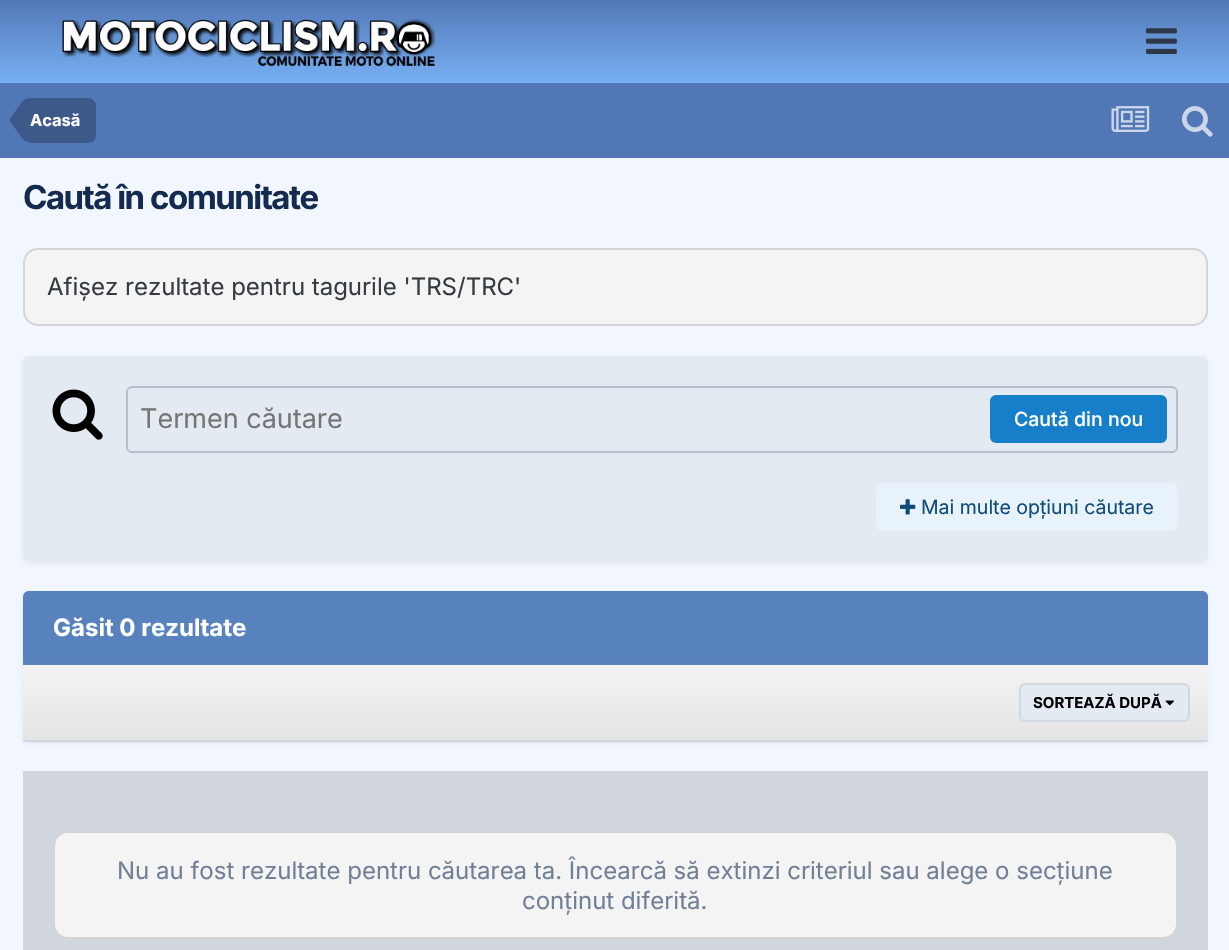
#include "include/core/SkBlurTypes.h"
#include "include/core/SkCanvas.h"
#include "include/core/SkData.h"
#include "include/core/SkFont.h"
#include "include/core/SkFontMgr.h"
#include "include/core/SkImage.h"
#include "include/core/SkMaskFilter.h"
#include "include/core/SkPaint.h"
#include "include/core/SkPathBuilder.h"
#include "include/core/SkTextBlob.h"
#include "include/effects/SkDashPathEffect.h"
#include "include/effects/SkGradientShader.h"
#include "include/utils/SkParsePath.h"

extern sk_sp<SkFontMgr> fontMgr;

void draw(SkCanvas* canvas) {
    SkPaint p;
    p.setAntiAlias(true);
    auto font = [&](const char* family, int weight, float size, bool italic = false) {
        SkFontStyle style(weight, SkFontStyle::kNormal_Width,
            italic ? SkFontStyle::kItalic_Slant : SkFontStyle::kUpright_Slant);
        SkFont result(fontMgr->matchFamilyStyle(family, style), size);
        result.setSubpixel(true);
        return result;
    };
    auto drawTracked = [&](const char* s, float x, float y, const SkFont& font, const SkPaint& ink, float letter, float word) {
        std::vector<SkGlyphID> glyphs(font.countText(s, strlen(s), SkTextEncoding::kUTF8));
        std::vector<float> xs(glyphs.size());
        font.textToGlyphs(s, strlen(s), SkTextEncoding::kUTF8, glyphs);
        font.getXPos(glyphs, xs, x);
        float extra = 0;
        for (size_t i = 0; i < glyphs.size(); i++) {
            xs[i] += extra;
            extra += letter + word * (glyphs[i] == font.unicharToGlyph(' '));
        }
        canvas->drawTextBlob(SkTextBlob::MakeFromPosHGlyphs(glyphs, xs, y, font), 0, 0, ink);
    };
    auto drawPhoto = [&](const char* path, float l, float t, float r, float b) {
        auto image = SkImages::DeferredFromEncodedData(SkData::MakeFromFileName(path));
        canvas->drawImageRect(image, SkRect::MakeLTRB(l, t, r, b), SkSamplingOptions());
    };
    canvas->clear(0xFFF2F6FF);
    {
        const SkColor colors[] = {0xFF5278B7, 0xFF77B0F2};
        const float stops[] = {0, 1};
        const SkPoint ends[] = {{615, 0}, {615, 83}};
        p.setShader(SkGradientShader::MakeLinear(ends, colors, stops, 2, SkTileMode::kClamp));
        p.setAlpha(255);
    }
    canvas->drawRect(SkRect::MakeLTRB(0, 0, 1229, 83), p);
    drawPhoto("media/1.png", 62, 19, 436, 67);
    drawPhoto("media/2.png", 1146, 28, 1177, 54);
    p.setShader(nullptr);
    p.setColor(0xFF5177B6);
    canvas->drawRect(SkRect::MakeLTRB(0, 83, 1229, 158), p);
    p.setColor(0xFF3D5989);
    canvas->drawPath(SkPathBuilder().moveTo(30, 98).lineTo(88, 98).cubicTo(92.5f, 98, 96, 101.5f, 96, 106).lineTo(96, 135).cubicTo(96, 139.5f, 92.5f, 143, 88, 143).lineTo(30, 143).close().detach(), p);
    canvas->drawPath(SkPathBuilder().moveTo(30, 120).lineTo(30, 142).cubicTo(27, 142, 24.5f, 141, 22, 138).lineTo(10.5f, 122).lineTo(10, 120).close().moveTo(30, 120).lineTo(10, 120).lineTo(10.5f, 118).lineTo(22, 102).cubicTo(24.5f, 99, 27, 98, 30, 98).close().detach(), p);
    auto font1 = font("Inter", 700, 16.5f);
    p.setColor(0xFFFFFFFF);
    canvas->drawString("Acasă", 30, 126, font1, p);
    drawPhoto("media/3.png", 1111, 106, 1150, 132);
    drawPhoto("media/4.png", 1182, 106, 1213, 137);
    auto font2 = font("Inter", 700, 33);
    p.setColor(0xFF142B50);
    drawTracked("Caută în comunitate", 23, 209, font2, p, -1.5f, 0);
    p.setColor(0xFFF4F4F4);
    canvas->drawRoundRect(SkRect::MakeLTRB(24, 249, 1207, 325), 14, 14, p);
    p.setStyle(SkPaint::kStroke_Style);
    p.setStrokeWidth(2);
    p.setColor(0xFFD4D4D4);
    canvas->drawRoundRect(SkRect::MakeLTRB(24, 249, 1207, 325), 14, 14, p);
    auto font3 = font("Inter", 400, 24);
    p.setStyle(SkPaint::kFill_Style);
    p.setColor(0xFF353C41);
    canvas->drawString("Afișez rezultate pentru tagurile 'TRS/TRC'", 47, 295, font3, p);
    p.setColor(0x1A2D3748);
    p.setMaskFilter(SkMaskFilter::MakeBlur(kNormal_SkBlurStyle, 3));
    canvas->drawRoundRect(SkRect::MakeLTRB(24, 360, 1206, 563), 5, 5, p);
    p.setMaskFilter(nullptr);
    p.setColor(0xFFE4EAF2);
    canvas->drawRoundRect(SkRect::MakeLTRB(23, 356, 1208, 561), 6, 6, p);
    drawPhoto("media/5.png", 52, 389, 103, 440);
    p.setStyle(SkPaint::kStroke_Style);
    p.setColor(0xFFB6C0CD);
    canvas->drawRoundRect(SkRect::MakeLTRB(127, 387, 1177, 452), 5, 5, p);
    auto font4 = font("Inter", 400, 27);
    p.setStyle(SkPaint::kFill_Style);
    p.setColor(0xFF757575);
    canvas->drawString("Termen căutare", 140, 428, font4, p);
    p.setColor(0xFF177EC9);
    canvas->drawRoundRect(SkRect::MakeLTRB(990, 395, 1167, 443), 6, 6, p);
    auto font5 = font("Inter", 500, 19.5f);
    p.setColor(0xFFFFFFFF);
    canvas->drawString("Caută din nou", 1014, 426, font5, p);
    p.setColor(0xFFE8F2FA);
    canvas->drawRoundRect(SkRect::MakeLTRB(876, 483, 1178, 531), 6, 6, p);
    drawPhoto("media/6.png", 900, 499, 916, 515);
    auto font6 = font("Inter", 400, 19.5f);
    p.setColor(0xFF0E4C79);
    canvas->drawString("Mai multe opțiuni căutare", 921, 514, font6, p);
    p.setColor(0x1A2D3748);
    p.setMaskFilter(SkMaskFilter::MakeBlur(kNormal_SkBlurStyle, 3));
    canvas->drawRoundRect(SkRect::MakeLTRB(24, 596, 1206, 743), 5, 5, p);
    p.setMaskFilter(nullptr);
    p.setColor(0xFF5882BD);
    canvas->drawPath(SkPathBuilder().moveTo(29, 591).lineTo(1202, 591).cubicTo(1205.5f, 591, 1208, 593.5f, 1208, 597).lineTo(1208, 665).lineTo(23, 665).lineTo(23, 597).cubicTo(23, 593.5f, 25.5f, 591, 29, 591).close().detach(), p);
    p.setColor(0xFF5C82B7);
    canvas->drawRect(SkRect::MakeLTRB(23, 663, 1208, 665), p);
    auto font7 = font("Inter", 700, 24);
    p.setColor(0xFFFFFFFF);
    canvas->drawString("Găsit 0 rezultate", 53, 636, font7, p);
    {
        const SkColor colors[] = {0xFFF4F4F4, 0xFFE4E4E4};
        const float stops[] = {0, 1};
        const SkPoint ends[] = {{615, 664}, {615, 740}};
        p.setShader(SkGradientShader::MakeLinear(ends, colors, stops, 2, SkTileMode::kClamp));
        p.setAlpha(255);
    }
    canvas->drawRect(SkRect::MakeLTRB(23, 665, 1208, 740), p);
    {
        const SkColor colors[] = {0xFFF4F4F4, 0xFFE4E4E4};
        const float stops[] = {0, 1};
        const SkPoint ends[] = {{615, 739}, {615, 815}};
        p.setShader(SkGradientShader::MakeLinear(ends, colors, stops, 2, SkTileMode::kClamp));
        p.setAlpha(255);
    }
    canvas->drawRect(SkRect::MakeLTRB(23, 740, 1208, 741), p);
    p.setShader(nullptr);
    p.setColor(0x26353C41);
    canvas->drawRect(SkRect::MakeLTRB(23, 740, 1208, 742), p);
    p.setColor(0xFFE4EAF2);
    canvas->drawRoundRect(SkRect::MakeLTRB(1019, 683, 1190, 722), 6, 6, p);
    drawPhoto("media/7.png", 1165, 700, 1174, 706);
    p.setStyle(SkPaint::kStroke_Style);
    p.setColor(0x1A353C41);
    canvas->drawRoundRect(SkRect::MakeLTRB(1020, 684, 1189, 721), 5, 5, p);
    auto font8 = font("Inter", 700, 15);
    p.setStyle(SkPaint::kFill_Style);
    p.setColor(0xFF000000);
    canvas->drawString("SORTEAZĂ DUPĂ", 1033, 708, font8, p);
    p.setColor(0xFFD1D6DE);
    canvas->drawRect(SkRect::MakeLTRB(23, 771, 1208, 950), p);
    p.setColor(0xFFF4F4F4);
    canvas->drawRoundRect(SkRect::MakeLTRB(54, 832, 1177, 938), 14, 14, p);
    p.setStyle(SkPaint::kStroke_Style);
    p.setColor(0xFFD4D4D4);
    canvas->drawRoundRect(SkRect::MakeLTRB(54, 832, 1177, 938), 14, 14, p);
    p.setStyle(SkPaint::kFill_Style);
    p.setColor(0xFF718096);
    canvas->drawString("Nu au fost rezultate pentru căutarea ta. Încearcă să extinzi criteriul sau alege o secțiune", 117, 879, font3, p);
    canvas->drawString("conținut diferită.", 522, 909, font3, p);
}
